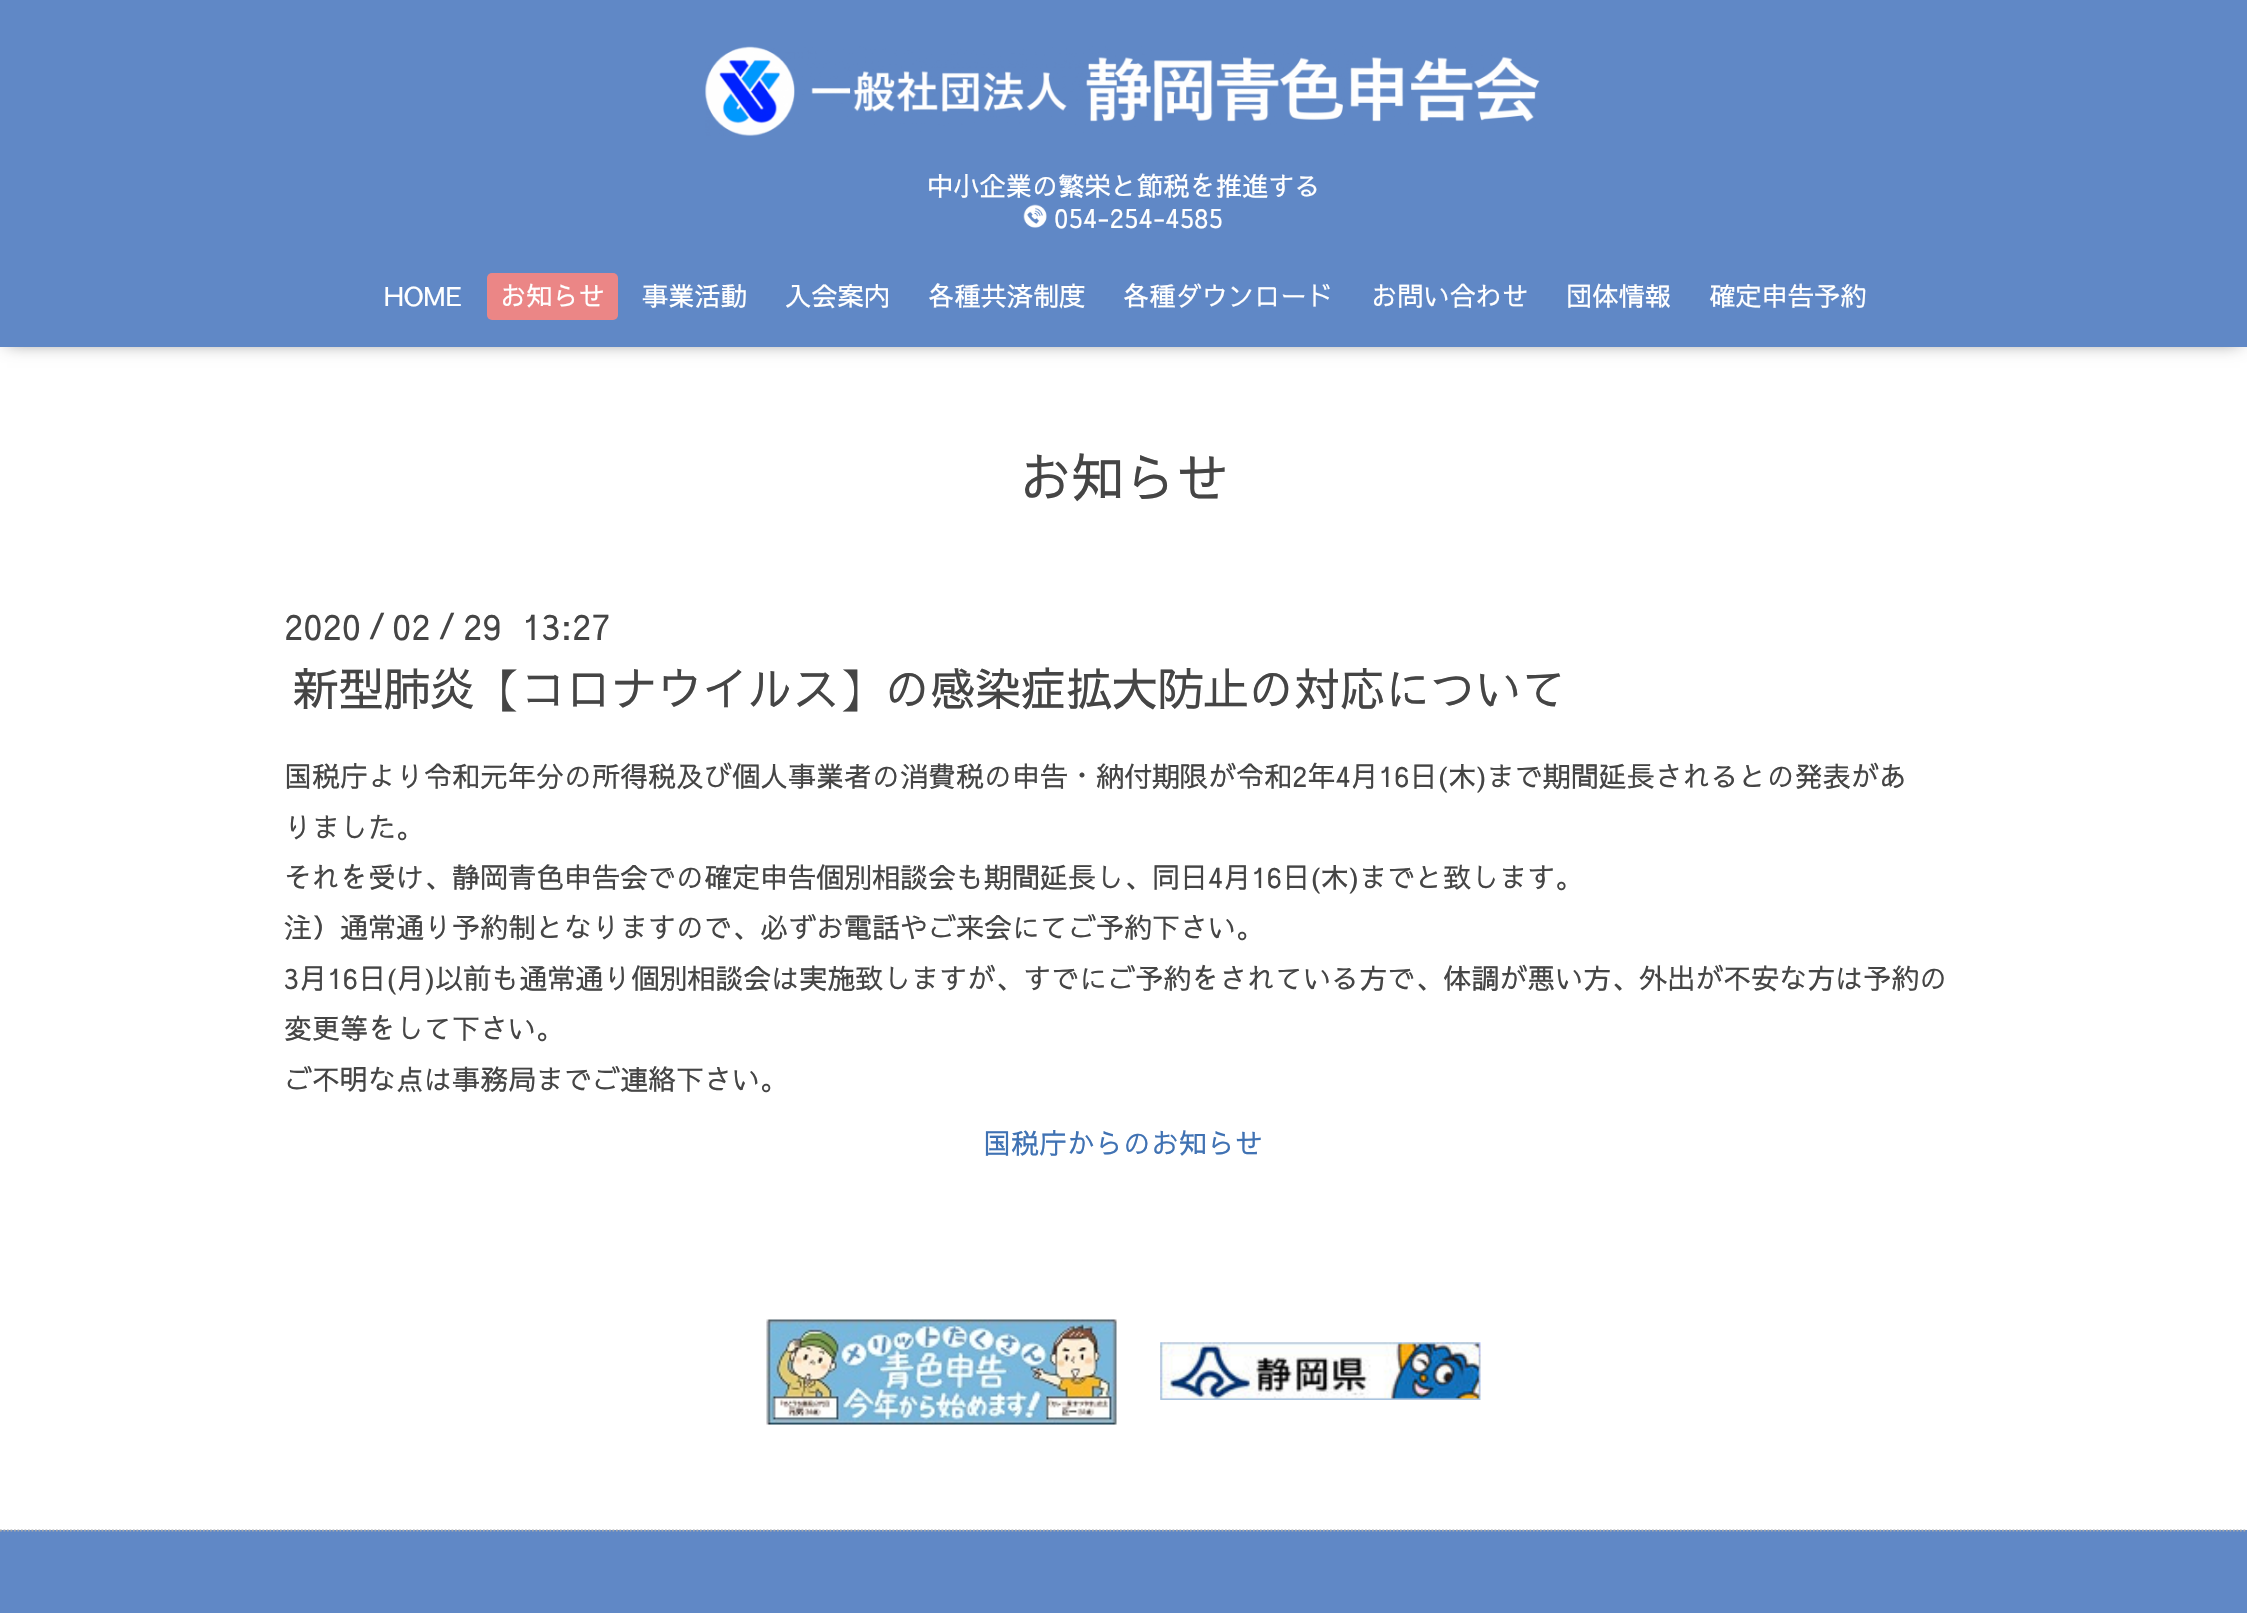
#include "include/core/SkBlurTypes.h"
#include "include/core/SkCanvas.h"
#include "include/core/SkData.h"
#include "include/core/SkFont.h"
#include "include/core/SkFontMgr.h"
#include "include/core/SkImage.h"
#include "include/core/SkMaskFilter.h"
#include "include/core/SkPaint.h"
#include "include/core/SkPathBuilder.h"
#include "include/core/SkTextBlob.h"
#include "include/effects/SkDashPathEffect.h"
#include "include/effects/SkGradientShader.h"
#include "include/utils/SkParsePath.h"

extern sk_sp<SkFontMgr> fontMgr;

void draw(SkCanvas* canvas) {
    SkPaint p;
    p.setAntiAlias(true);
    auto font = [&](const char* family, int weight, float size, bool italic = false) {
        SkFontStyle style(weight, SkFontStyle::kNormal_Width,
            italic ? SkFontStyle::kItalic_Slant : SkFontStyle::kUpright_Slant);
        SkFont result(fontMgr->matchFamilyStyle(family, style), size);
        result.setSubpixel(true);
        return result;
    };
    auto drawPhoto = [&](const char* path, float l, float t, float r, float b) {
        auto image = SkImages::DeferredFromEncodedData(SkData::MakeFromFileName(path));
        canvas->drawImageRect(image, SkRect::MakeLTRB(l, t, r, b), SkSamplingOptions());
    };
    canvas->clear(0xFFFFFFFF);
    p.setColor(0x99000000);
    p.setMaskFilter(SkMaskFilter::MakeBlur(kNormal_SkBlurStyle, 9));
    canvas->drawRect(SkRect::MakeLTRB(7, 9, 2240, 341), p);
    p.setMaskFilter(nullptr);
    p.setColor(0xFF6088C6);
    canvas->drawRect(SkRect::MakeLTRB(0, 0, 2247, 347), p);
    drawPhoto("media/1.png", 705, 46, 1540, 136);
    auto font1 = font("Sawarabi Gothic", 400, 26.25f);
    p.setColor(0xFFFFFFFF);
    canvas->drawString("中小企業の繁栄と節税を推進する", 927, 196, font1, p);
    drawPhoto("media/2.png", 1023, 204, 1047, 228);
    canvas->drawString("054-254-4585", 1054, 228, font1, p);
    canvas->drawString("HOME", 384, 306, font1, p);
    p.setColor(0xFFEB8686);
    canvas->drawRoundRect(SkRect::MakeLTRB(487, 273, 618, 320), 5, 5, p);
    p.setColor(0xFFFFFFFF);
    {
        const struct { const char* s; float x, y; } items[] = {
            {"お知らせ", 500, 306},
            {"事業活動", 642, 306},
            {"入会案内", 785, 306},
            {"各種共済制度", 928, 306},
            {"各種ダウンロード", 1123, 306},
            {"お問い合わせ", 1371, 306},
            {"団体情報", 1566, 306},
            {"確定申告予約", 1709, 306},
        };
        for (auto [s, x, y] : items) {
            canvas->drawString(s, x, y, font1, p);
        }
    }
    auto font2 = font("Sawarabi Gothic", 400, 52.5f);
    p.setColor(0xFF454545);
    canvas->drawString("お知らせ", 1019, 498, font2, p);
    auto font3 = font("Sawarabi Gothic", 400, 35);
    canvas->drawString("2020", 284, 640, font3, p);
    auto font4 = font("Sawarabi Gothic", 700, 28);
    canvas->drawString("/", 369, 636, font4, p);
    canvas->drawString("02", 392, 640, font3, p);
    canvas->drawString("/", 439, 636, font4, p);
    canvas->drawString("29  13:27", 463, 640, font3, p);
    auto font5 = font("Sawarabi Gothic", 400, 45.5f);
    canvas->drawString("新型肺炎【コロナウイルス】の感染症拡大防止の対応について", 293, 706, font5, p);
    auto font6 = font("Sawarabi Gothic", 400, 28);
    {
        const struct { const char* s; float x, y; } items[] = {
            {"国税庁より令和元年分の所得税及び個人事業者の消費税の申告・納付期限が令和2年4月16日(木)まで期間延長されるとの発表があ", 284, 787},
            {"りました。", 284, 838},
            {"それを受け、静岡青色申告会での確定申告個別相談会も期間延長し、同日4月16日(木)までと致します。", 284, 888},
            {"注）通常通り予約制となりますので、必ずお電話やご来会にてご予約下さい。", 284, 938},
            {"3月16日(月)以前も通常通り個別相談会は実施致しますが、すでにご予約をされている方で、体調が悪い方、外出が不安な方は予約の", 284, 989},
            {"変更等をして下さい。", 284, 1039},
            {"ご不明な点は事務局までご連絡下さい。", 284, 1090},
        };
        for (auto [s, x, y] : items) {
            canvas->drawString(s, x, y, font6, p);
        }
    }
    p.setColor(0xFF4072B3);
    canvas->drawString("国税庁からのお知らせ", 983, 1154, font6, p);
    drawPhoto("media/3.png", 766, 1319, 1117, 1425);
    drawPhoto("media/4.png", 1160, 1342, 1481, 1400);
    p.setColor(0xFF6088C6);
    canvas->drawRect(SkRect::MakeLTRB(0, 1530, 2247, 1613), p);
    p.setStyle(SkPaint::kStroke_Style);
    p.setStrokeWidth(1.8f);
    p.setColor(0xFFA9A9A9);
    p.setPathEffect(SkDashPathEffect::Make({{1.75f, 1.75f}}, 0));
    canvas->drawPath(SkPathBuilder().moveTo(0, 1530.5f).lineTo(2247, 1530.5f).detach(), p);
    p.setPathEffect(nullptr);
}
